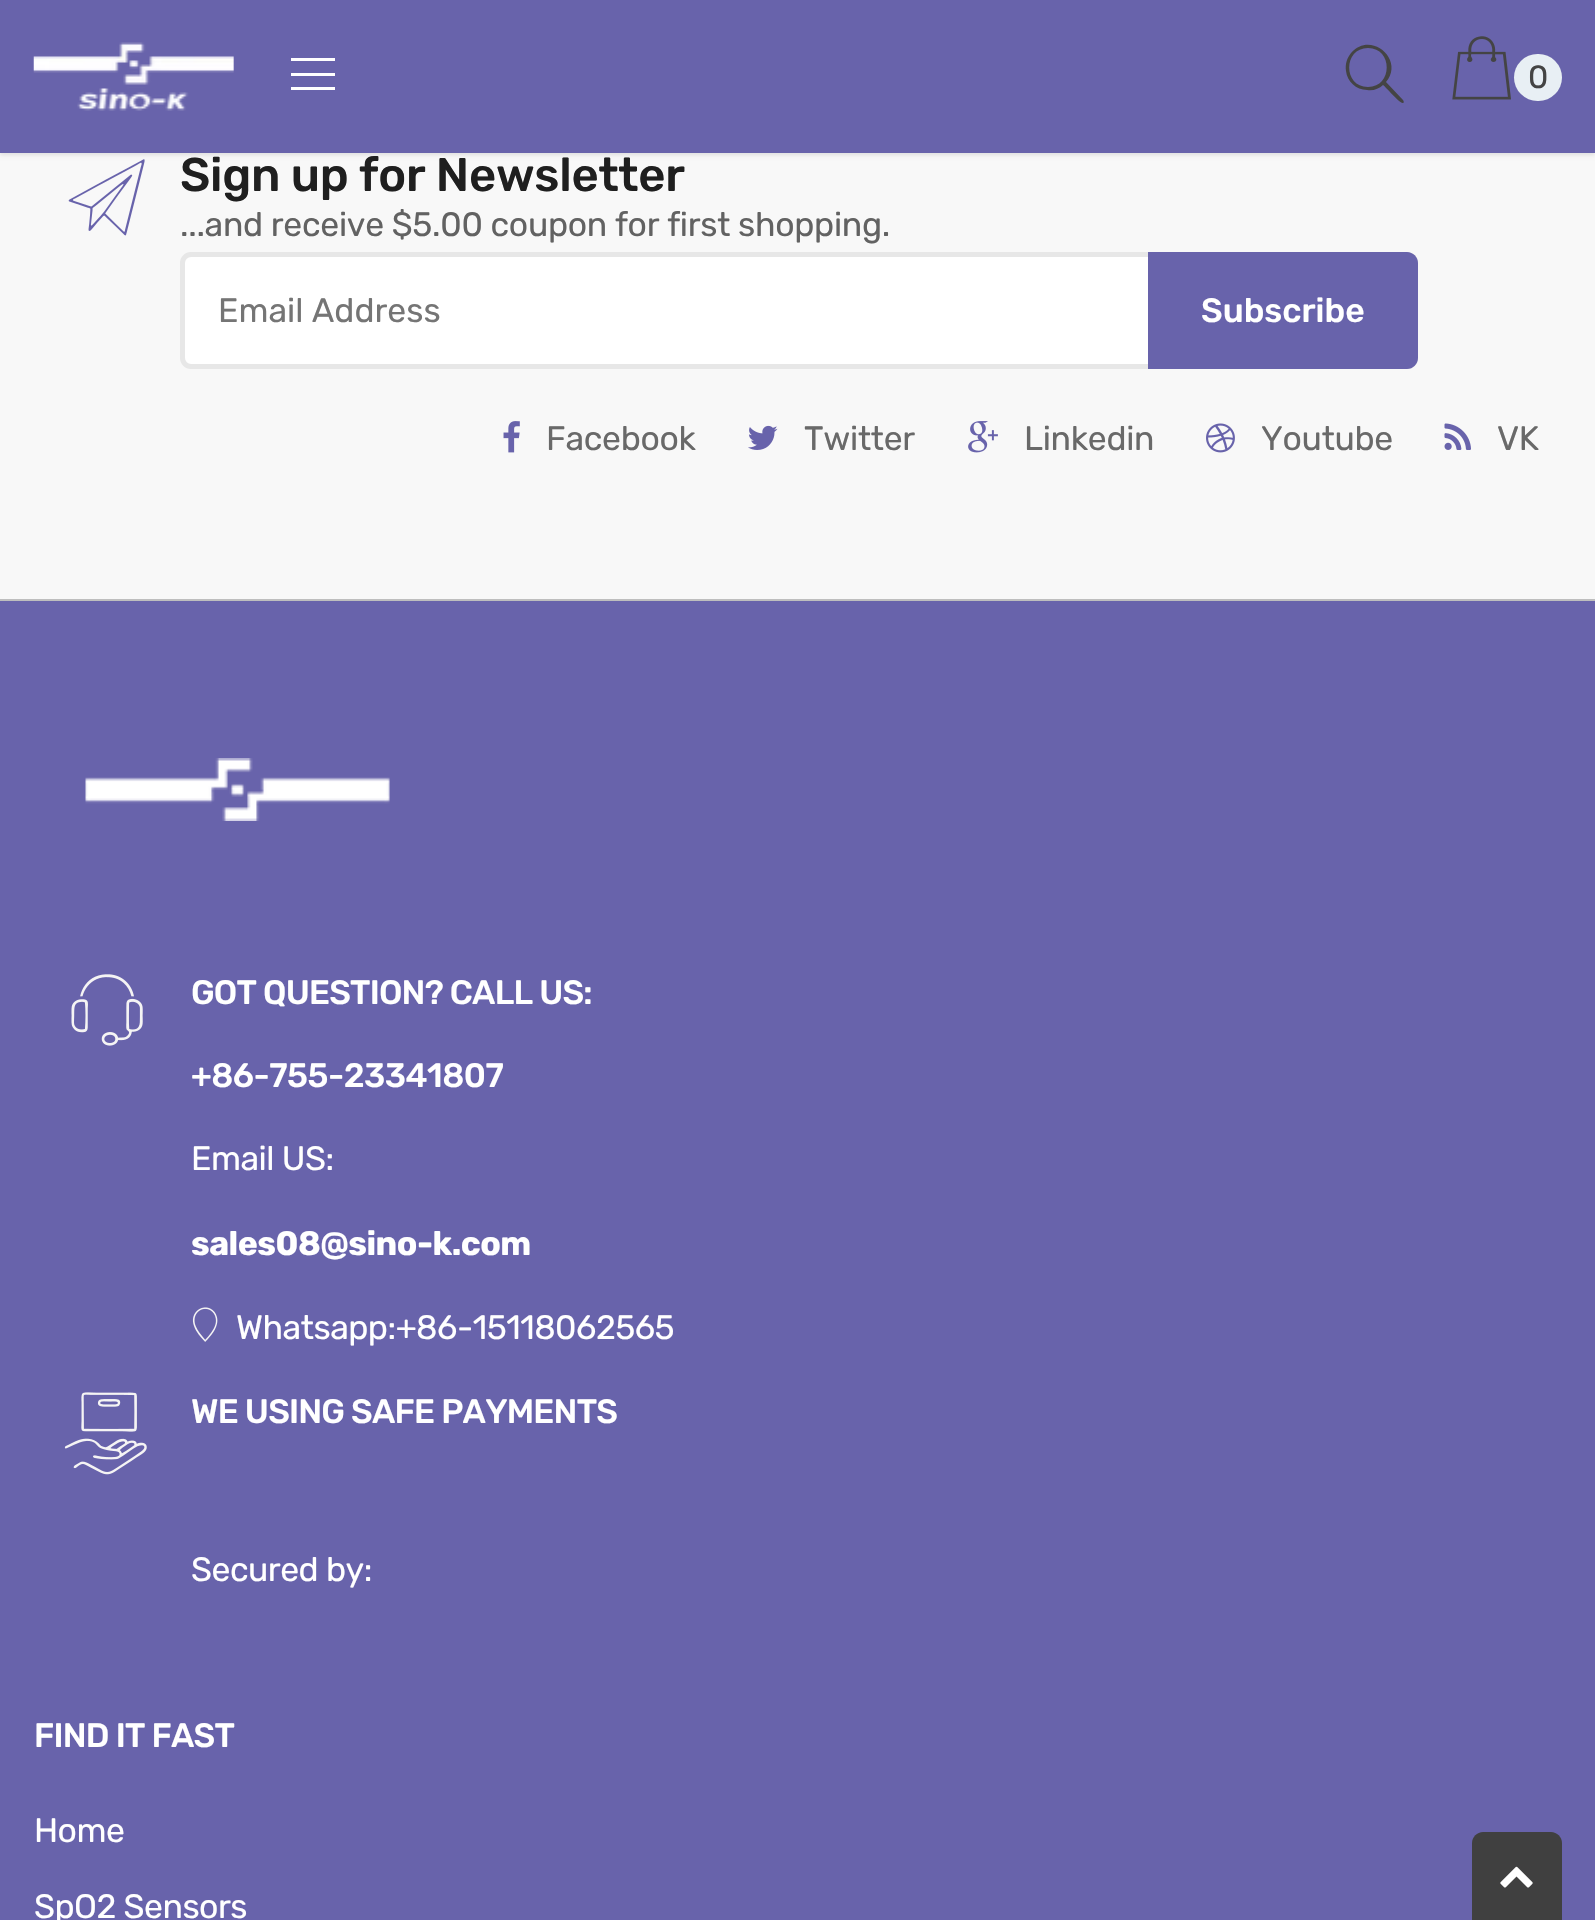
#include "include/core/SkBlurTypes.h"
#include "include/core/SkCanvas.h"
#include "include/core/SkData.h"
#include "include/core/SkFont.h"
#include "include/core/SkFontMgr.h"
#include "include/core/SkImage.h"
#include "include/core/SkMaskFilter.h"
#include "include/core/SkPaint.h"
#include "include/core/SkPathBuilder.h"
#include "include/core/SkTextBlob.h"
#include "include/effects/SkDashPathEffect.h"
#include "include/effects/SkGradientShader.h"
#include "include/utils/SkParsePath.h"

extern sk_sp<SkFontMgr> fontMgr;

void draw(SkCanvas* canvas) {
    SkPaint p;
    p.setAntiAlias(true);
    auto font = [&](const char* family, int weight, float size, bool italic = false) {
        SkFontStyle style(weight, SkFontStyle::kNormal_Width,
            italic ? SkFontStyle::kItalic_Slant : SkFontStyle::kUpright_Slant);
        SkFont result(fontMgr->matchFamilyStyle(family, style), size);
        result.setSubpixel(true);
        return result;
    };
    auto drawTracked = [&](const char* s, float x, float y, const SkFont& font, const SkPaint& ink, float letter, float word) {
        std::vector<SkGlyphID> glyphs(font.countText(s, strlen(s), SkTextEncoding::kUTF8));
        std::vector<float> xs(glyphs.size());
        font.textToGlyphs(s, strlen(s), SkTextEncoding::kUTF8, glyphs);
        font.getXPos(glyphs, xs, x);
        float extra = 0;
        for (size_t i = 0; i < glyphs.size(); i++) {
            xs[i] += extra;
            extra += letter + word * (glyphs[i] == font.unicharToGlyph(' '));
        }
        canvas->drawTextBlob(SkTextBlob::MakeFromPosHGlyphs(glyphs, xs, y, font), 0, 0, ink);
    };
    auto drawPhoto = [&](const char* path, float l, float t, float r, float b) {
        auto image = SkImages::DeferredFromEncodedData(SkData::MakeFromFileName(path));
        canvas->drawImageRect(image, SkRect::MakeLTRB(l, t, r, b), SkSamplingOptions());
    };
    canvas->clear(0xFFF8F8F8);
    drawPhoto("media/3.png", 68, 159, 145, 236);
    p.setColor(0x1A000000);
    p.setMaskFilter(SkMaskFilter::MakeBlur(kNormal_SkBlurStyle, 2));
    canvas->drawRect(SkRect::MakeLTRB(0, 2, 1595, 155), p);
    p.setMaskFilter(nullptr);
    p.setColor(0xFF6863AB);
    canvas->drawRect(SkRect::MakeLTRB(0, 0, 1595, 153), p);
    drawPhoto("media/1.png", 33, 42, 234, 111);
    p.setColor(0xFFFFFFFF);
    canvas->drawPath(SkPathBuilder().moveTo(291, 58).lineTo(291, 61).lineTo(335, 61).lineTo(335, 58).close().moveTo(291, 76).lineTo(335, 76).lineTo(335, 73).lineTo(291, 73).close().moveTo(291, 90).lineTo(335, 90).lineTo(335, 87).lineTo(291, 87).close().detach(), p);
    p.setColor(0xFF444444);
    canvas->drawPath(SkPathBuilder().moveTo(1403, 100).lineTo(1386, 82).cubicTo(1405, 60, 1371, 30, 1351, 53).cubicTo(1347, 58, 1345, 64, 1346, 71).cubicTo(1347, 81, 1356, 90, 1367, 90).cubicTo(1373, 91, 1379, 89, 1383, 85).cubicTo(1386, 87, 1400, 104, 1403, 103).cubicTo(1404, 103, 1404, 101, 1403, 100).close().moveTo(1368, 87).cubicTo(1343, 87, 1343, 48, 1368, 48).cubicTo(1393, 48, 1393, 87, 1368, 87).close().detach(), p);
    drawPhoto("media/2.png", 1452, 36, 1511, 100);
    p.setColor(0xFFE8EFF4);
    canvas->drawRoundRect(SkRect::MakeLTRB(1514, 54, 1562, 101), 23.5f, 23.5f, p);
    auto font1 = font("Rubik", 400, 32);
    p.setColor(0xFF444444);
    canvas->drawString("0", 1528, 88, font1, p);
    p.setColor(0xFFBEBEBE);
    canvas->drawRect(SkRect::MakeLTRB(0, 599, 1595, 601), p);
    auto font2 = font("Rubik", 500, 47.25f);
    p.setColor(0xFF1F1F1F);
    drawTracked("Sign up for Newsletter", 180, 191, font2, p, -0.3f, 0);
    auto font3 = font("Rubik", 400, 33.75f);
    p.setColor(0xFF626262);
    drawTracked("...and receive $5.00 coupon for first shopping.", 180, 236, font3, p, -0.3f, 0);
    p.setColor(0xFFFFFFFF);
    canvas->drawRoundRect(SkRect::MakeLTRB(182.5f, 254.5f, 1415.5f, 366.5f), 8.5f, 8.5f, p);
    p.setStyle(SkPaint::kStroke_Style);
    p.setStrokeWidth(5);
    p.setColor(0xFFE7E7E7);
    canvas->drawRoundRect(SkRect::MakeLTRB(182.5f, 254.5f, 1415.5f, 366.5f), 8.5f, 8.5f, p);
    p.setStyle(SkPaint::kFill_Style);
    p.setColor(0xFF757575);
    canvas->drawString("Email Address", 218, 322, font3, p);
    p.setColor(0xFF6863AB);
    canvas->drawPath(SkPathBuilder().moveTo(1148, 252).lineTo(1407, 252).cubicTo(1413, 252, 1418, 257, 1418, 263).lineTo(1418, 358).cubicTo(1418, 364, 1413, 369, 1407, 369).lineTo(1148, 369).close().detach(), p);
    auto font4 = font("Rubik", 500, 33.75f);
    p.setColor(0xFFFFFFFF);
    canvas->drawString("Subscribe", 1201, 322, font4, p);
    drawPhoto("media/4.png", 503, 421, 520, 453);
    p.setColor(0xFF696969);
    drawTracked("Facebook", 546, 450, font3, p, -0.3f, 0);
    drawPhoto("media/5.png", 748, 425, 778, 450);
    drawTracked("Twitter", 804, 450, font3, p, -0.3f, 0);
    drawPhoto("media/6.png", 968, 421, 998, 453);
    drawTracked("Linkedin", 1024, 450, font3, p, -0.3f, 0);
    drawPhoto("media/7.png", 1206, 423, 1235, 453);
    drawTracked("Youtube", 1261, 450, font3, p, -0.3f, 0);
    drawPhoto("media/8.png", 1444, 423, 1471, 450);
    drawTracked("VK", 1497, 450, font3, p, -0.3f, 0);
    p.setColor(0xFF6863AB);
    canvas->drawRect(SkRect::MakeLTRB(0, 601, 1595, 1920), p);
    drawPhoto("media/9.png", 85, 758, 390, 821);
    drawPhoto("media/10.png", 71, 974, 143, 1046);
    p.setColor(0xFFFFFFFF);
    drawTracked("GOT QUESTION? CALL US:", 191, 1004, font4, p, -0.8f, 0);
    drawTracked("+86-755-23341807", 191, 1087, font4, p, -0.5f, 0);
    drawTracked("Email US:", 191, 1170, font3, p, -0.5f, 0);
    auto font5 = font("Rubik", 700, 33.75f);
    drawTracked("sales08@sino-k.com", 191, 1255, font5, p, -0.5f, 0);
    drawPhoto("media/11.png", 192, 1307, 218, 1342);
    drawTracked("Whatsapp:+86-15118062565", 236, 1339, font3, p, -0.5f, 0);
    drawPhoto("media/12.png", 64, 1392, 147, 1475);
    drawTracked("WE USING SAFE PAYMENTS", 191, 1423, font4, p, -0.8f, 0);
    drawTracked("Secured by:", 191, 1581, font3, p, -0.5f, 0);
    drawTracked("FIND IT FAST", 34, 1747, font4, p, -0.8f, 0);
    drawTracked("Home", 34, 1842, font3, p, -0.5f, 0);
    drawTracked("SpO2 Sensors", 34, 1918, font3, p, -0.5f, 0);
    p.setColor(0xFF404040);
    canvas->drawPath(SkPathBuilder().moveTo(1483, 1832).lineTo(1551, 1832).cubicTo(1557, 1832, 1562, 1837, 1562, 1843).lineTo(1562, 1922).lineTo(1472, 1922).lineTo(1472, 1843).cubicTo(1472, 1837, 1477, 1832, 1483, 1832).close().detach(), p);
    drawPhoto("media/13.png", 1500, 1866, 1533, 1888);
}
